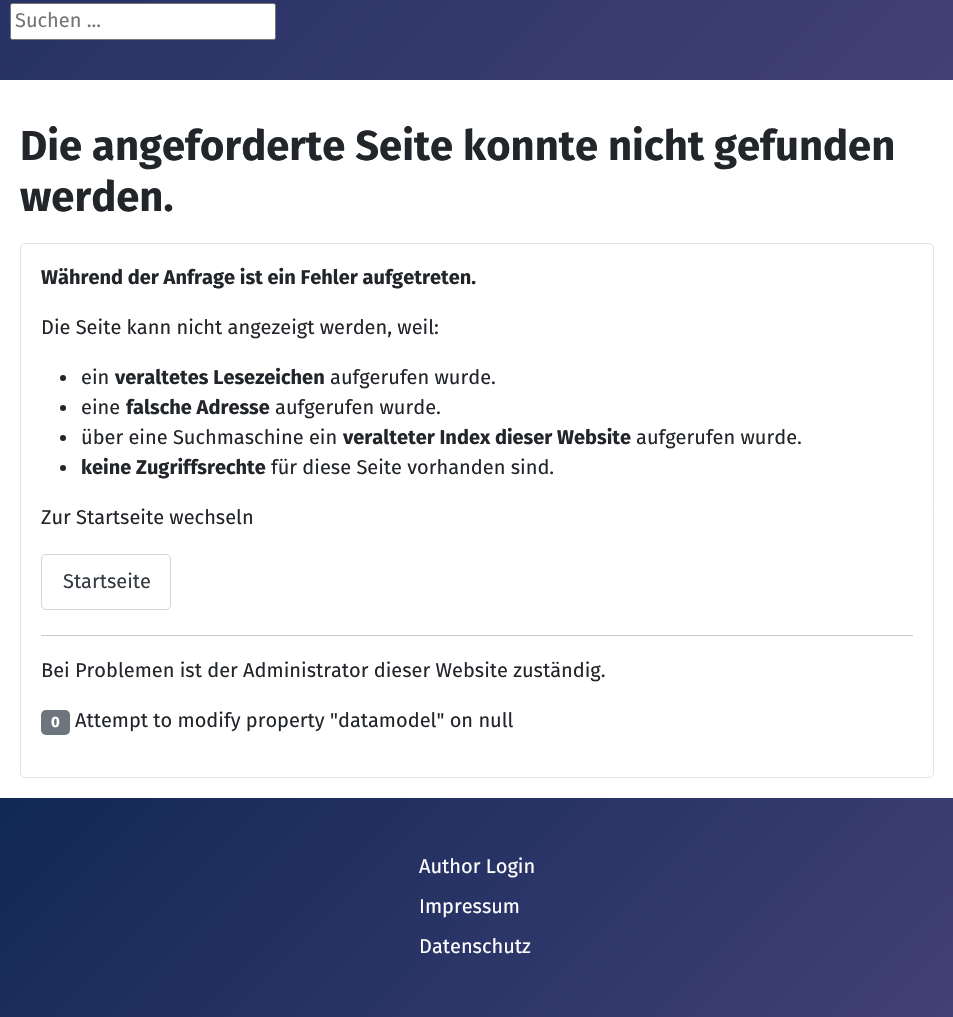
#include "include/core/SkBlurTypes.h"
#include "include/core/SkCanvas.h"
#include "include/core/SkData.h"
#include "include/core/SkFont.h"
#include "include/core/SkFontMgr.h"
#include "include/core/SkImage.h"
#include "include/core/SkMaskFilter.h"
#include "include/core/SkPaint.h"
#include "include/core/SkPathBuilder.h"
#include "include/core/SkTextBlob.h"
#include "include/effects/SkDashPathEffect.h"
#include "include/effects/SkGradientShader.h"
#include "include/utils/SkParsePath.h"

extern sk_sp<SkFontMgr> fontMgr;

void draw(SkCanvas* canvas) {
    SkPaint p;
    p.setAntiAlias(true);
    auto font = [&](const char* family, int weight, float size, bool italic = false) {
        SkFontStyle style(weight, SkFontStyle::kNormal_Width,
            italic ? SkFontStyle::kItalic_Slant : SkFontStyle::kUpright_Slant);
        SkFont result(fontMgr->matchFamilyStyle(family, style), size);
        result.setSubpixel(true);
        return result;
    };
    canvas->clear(0xFFFFFFFF);
    {
        const SkColor colors[] = {0xFF112855, 0xFF424077};
        const float stops[] = {0, 1};
        const SkPoint ends[] = {{14, -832}, {940, 94}};
        p.setShader(SkGradientShader::MakeLinear(ends, colors, stops, 2, SkTileMode::kClamp));
        p.setAlpha(255);
    }
    canvas->drawRect(SkRect::MakeLTRB(0, 0, 953, 80), p);
    p.setShader(nullptr);
    p.setColor(0xFFFFFFFF);
    canvas->drawRoundRect(SkRect::MakeLTRB(10.5f, 3.5f, 275.5f, 39.5f), 2, 2, p);
    p.setStyle(SkPaint::kStroke_Style);
    p.setStrokeWidth(1);
    p.setColor(0xFF767676);
    canvas->drawRoundRect(SkRect::MakeLTRB(10.5f, 3.5f, 275.5f, 39.5f), 2, 2, p);
    auto font1 = font("Fira Sans", 400, 20);
    p.setStyle(SkPaint::kFill_Style);
    p.setColor(0xFF757575);
    canvas->drawString("Suchen ...", 15, 27, font1, p);
    auto font2 = font("Fira Sans", 700, 41.8f);
    p.setColor(0xFF22262A);
    canvas->drawString("Die angeforderte Seite konnte nicht gefunden", 20, 160, font2, p);
    canvas->drawString("werden.", 20, 211, font2, p);
    p.setStyle(SkPaint::kStroke_Style);
    p.setColor(0xFFDFE3E7);
    canvas->drawRoundRect(SkRect::MakeLTRB(20.5f, 243.5f, 933.5f, 777.5f), 4.5f, 4.5f, p);
    auto font3 = font("Fira Sans", 700, 20);
    p.setStyle(SkPaint::kFill_Style);
    p.setColor(0xFF22262A);
    canvas->drawString("Während der Anfrage ist ein Fehler aufgetreten.", 41, 284, font3, p);
    canvas->drawString("Die Seite kann nicht angezeigt werden, weil:", 41, 334, font1, p);
    canvas->drawCircle(63, 378, 3, p);
    canvas->drawString("ein", 81, 384, font1, p);
    canvas->drawString("veraltetes Lesezeichen", 115, 384, font3, p);
    canvas->drawString("aufgerufen wurde.", 330, 384, font1, p);
    canvas->drawCircle(63, 408, 3, p);
    canvas->drawString("eine", 81, 414, font1, p);
    canvas->drawString("falsche Adresse", 126, 414, font3, p);
    canvas->drawString("aufgerufen wurde.", 275, 414, font1, p);
    canvas->drawCircle(63, 438, 3, p);
    canvas->drawString("über eine Suchmaschine ein", 81, 444, font1, p);
    canvas->drawString("veralteter Index dieser Website", 343, 444, font3, p);
    canvas->drawString("aufgerufen wurde.", 636, 444, font1, p);
    canvas->drawCircle(63, 468, 3, p);
    canvas->drawString("keine Zugriffsrechte", 81, 474, font3, p);
    canvas->drawString("für diese Seite vorhanden sind.", 271, 474, font1, p);
    canvas->drawString("Zur Startseite wechseln", 41, 524, font1, p);
    p.setStyle(SkPaint::kStroke_Style);
    p.setColor(0xFFCED4DA);
    canvas->drawRoundRect(SkRect::MakeLTRB(41.5f, 554.5f, 170.5f, 609.5f), 4.5f, 4.5f, p);
    p.setStyle(SkPaint::kFill_Style);
    p.setColor(0xFF353B41);
    canvas->drawString("Startseite", 63, 588, font1, p);
    p.setColor(0xFFC8C9CA);
    canvas->drawRect(SkRect::MakeLTRB(41, 635, 913, 636), p);
    p.setColor(0xFF22262A);
    canvas->drawString("Bei Problemen ist der Administrator dieser Website zuständig.", 41, 677, font1, p);
    p.setColor(0xFF6D757E);
    canvas->drawRoundRect(SkRect::MakeLTRB(41, 710, 70, 735), 5, 5, p);
    auto font4 = font("Fira Sans", 700, 15);
    p.setColor(0xFFFFFFFF);
    canvas->drawString("0", 51, 727, font4, p);
    p.setColor(0xFF22262A);
    canvas->drawString("Attempt to modify property \"datamodel\" on null", 75, 727, font1, p);
    {
        const SkColor colors[] = {0xFF112855, 0xFF424077};
        const float stops[] = {0, 1};
        const SkPoint ends[] = {{183, 614}, {770, 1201}};
        p.setShader(SkGradientShader::MakeLinear(ends, colors, stops, 2, SkTileMode::kClamp));
        p.setAlpha(255);
    }
    canvas->drawRect(SkRect::MakeLTRB(0, 798, 953, 1017), p);
    p.setShader(nullptr);
    p.setColor(0xFFFFFFFF);
    {
        const struct { const char* s; float x, y; } items[] = {
            {"Author Login", 419, 873},
            {"Impressum", 419, 913},
            {"Datenschutz", 419, 953},
        };
        for (auto [s, x, y] : items) {
            canvas->drawString(s, x, y, font1, p);
        }
    }
}
